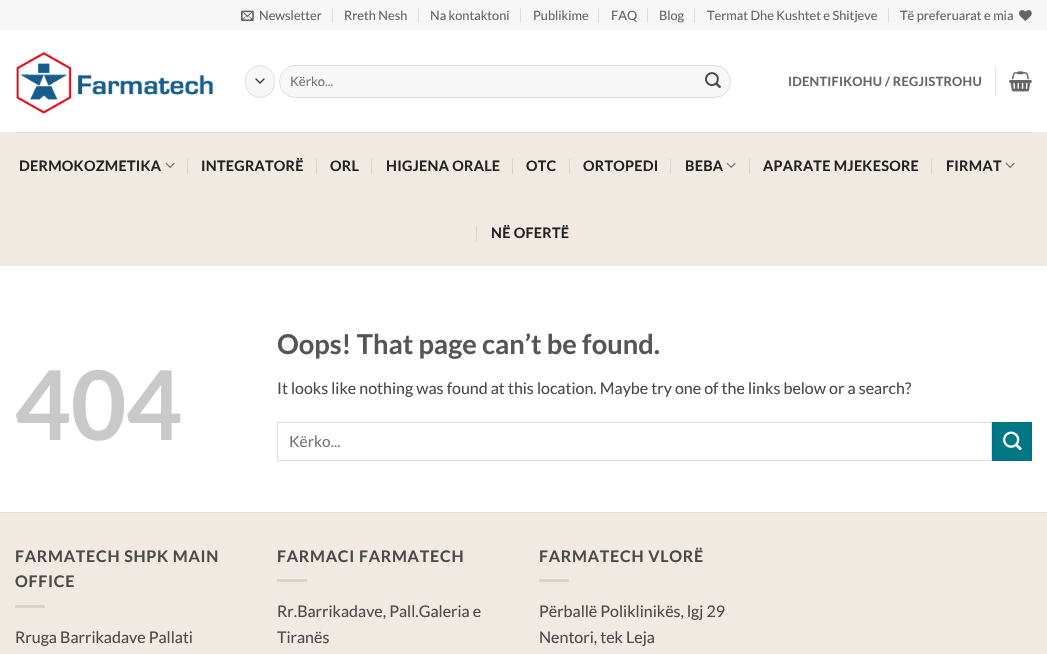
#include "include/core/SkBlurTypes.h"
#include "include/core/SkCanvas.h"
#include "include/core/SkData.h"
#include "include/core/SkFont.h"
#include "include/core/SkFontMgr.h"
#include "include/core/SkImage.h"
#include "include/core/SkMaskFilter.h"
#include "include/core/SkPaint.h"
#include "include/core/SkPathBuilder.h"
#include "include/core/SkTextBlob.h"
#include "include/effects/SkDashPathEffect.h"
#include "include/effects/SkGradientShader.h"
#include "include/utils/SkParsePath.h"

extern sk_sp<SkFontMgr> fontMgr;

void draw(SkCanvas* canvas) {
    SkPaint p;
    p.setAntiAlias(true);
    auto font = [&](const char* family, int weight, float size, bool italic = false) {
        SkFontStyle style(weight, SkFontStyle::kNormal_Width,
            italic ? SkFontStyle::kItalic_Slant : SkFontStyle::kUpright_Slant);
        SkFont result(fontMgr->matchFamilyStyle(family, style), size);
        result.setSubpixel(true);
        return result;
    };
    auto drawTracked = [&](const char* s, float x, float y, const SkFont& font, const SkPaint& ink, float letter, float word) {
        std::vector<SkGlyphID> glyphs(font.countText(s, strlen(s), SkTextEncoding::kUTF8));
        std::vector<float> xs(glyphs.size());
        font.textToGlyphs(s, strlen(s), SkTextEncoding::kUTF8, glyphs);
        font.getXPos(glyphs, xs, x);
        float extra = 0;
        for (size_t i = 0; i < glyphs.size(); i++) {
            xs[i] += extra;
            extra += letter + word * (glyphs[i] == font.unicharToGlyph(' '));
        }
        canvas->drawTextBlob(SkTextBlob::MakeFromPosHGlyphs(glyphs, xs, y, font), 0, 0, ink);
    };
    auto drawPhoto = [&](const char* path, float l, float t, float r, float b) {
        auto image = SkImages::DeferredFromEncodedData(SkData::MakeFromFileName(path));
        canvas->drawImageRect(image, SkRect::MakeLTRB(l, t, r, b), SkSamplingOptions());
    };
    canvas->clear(0xFFFFFFFF);
    p.setColor(0xFFF7F7F7);
    canvas->drawRect(SkRect::MakeLTRB(0, 0, 1047, 30), p);
    drawPhoto("media/1.png", 241, 10, 254, 21);
    auto font1 = font("Lato", 400, 12.75f);
    p.setColor(0xFF656565);
    canvas->drawString("Newsletter", 259, 20, font1, p);
    p.setColor(0xFFDEDEDE);
    canvas->drawRect(SkRect::MakeLTRB(332, 8, 333, 23), p);
    p.setColor(0xFF656565);
    canvas->drawString("Rreth Nesh", 344, 20, font1, p);
    p.setColor(0xFFDEDEDE);
    canvas->drawRect(SkRect::MakeLTRB(418, 8, 419, 23), p);
    p.setColor(0xFF656565);
    canvas->drawString("Na kontaktoni", 430, 20, font1, p);
    p.setColor(0xFFDEDEDE);
    canvas->drawRect(SkRect::MakeLTRB(520, 8, 521, 23), p);
    p.setColor(0xFF656565);
    canvas->drawString("Publikime", 533, 20, font1, p);
    p.setColor(0xFFDEDEDE);
    canvas->drawRect(SkRect::MakeLTRB(598, 8, 599, 23), p);
    p.setColor(0xFF656565);
    canvas->drawString("FAQ", 611, 20, font1, p);
    p.setColor(0xFFDEDEDE);
    canvas->drawRect(SkRect::MakeLTRB(647, 8, 648, 23), p);
    p.setColor(0xFF656565);
    canvas->drawString("Blog", 659, 20, font1, p);
    p.setColor(0xFFDEDEDE);
    canvas->drawRect(SkRect::MakeLTRB(694, 8, 695, 23), p);
    p.setColor(0xFF656565);
    canvas->drawString("Termat Dhe Kushtet e Shitjeve", 707, 20, font1, p);
    p.setColor(0xFFDEDEDE);
    canvas->drawRect(SkRect::MakeLTRB(888, 8, 889, 23), p);
    p.setColor(0xFF656565);
    canvas->drawString("Të preferuarat e mia", 900, 20, font1, p);
    drawPhoto("media/2.png", 1019, 10, 1032, 21);
    drawPhoto("media/3.png", 16, 52, 213, 114);
    p.setColor(0xFFF7F7F7);
    canvas->drawRoundRect(SkRect::MakeLTRB(245, 65, 275, 98), 15, 15, p);
    p.setStyle(SkPaint::kStroke_Style);
    p.setStrokeWidth(1.3f);
    p.setStrokeCap(SkPaint::kRound_Cap);
    p.setStrokeJoin(SkPaint::kRound_Join);
    p.setColor(0xFF333333);
    canvas->drawPath(SkPathBuilder().moveTo(256, 79).lineTo(260, 83).lineTo(264, 79).detach(), p);
    p.setStrokeWidth(1);
    p.setStrokeCap(SkPaint::kButt_Cap);
    p.setStrokeJoin(SkPaint::kMiter_Join);
    p.setColor(0x17000000);
    canvas->drawRoundRect(SkRect::MakeLTRB(245.5f, 65.5f, 274.5f, 97.5f), 14.5f, 14.5f, p);
    p.setStyle(SkPaint::kFill_Style);
    p.setColor(0xFFF7F7F7);
    canvas->drawRoundRect(SkRect::MakeLTRB(279, 65, 731, 98), 16.5f, 16.5f, p);
    p.setStyle(SkPaint::kStroke_Style);
    p.setColor(0x17000000);
    canvas->drawRoundRect(SkRect::MakeLTRB(279.5f, 65.5f, 730.5f, 97.5f), 16, 16, p);
    auto font2 = font("Lato", 400, 13);
    p.setStyle(SkPaint::kFill_Style);
    p.setColor(0xFF757575);
    canvas->drawString("Kërko...", 290, 86, font2, p);
    drawPhoto("media/4.png", 705, 72, 721, 88);
    auto font3 = font("Lato", 700, 12.75f);
    p.setColor(0xFF656565);
    drawTracked("IDENTIFIKOHU / REGJISTROHU", 788, 86, font3, p, 0.25f, 0);
    p.setColor(0xFFE6E6E6);
    canvas->drawRect(SkRect::MakeLTRB(995, 66, 996, 96), p);
    drawPhoto("media/5.png", 1009, 71, 1032, 92);
    p.setColor(0xFFF0EAE3);
    canvas->drawRect(SkRect::MakeLTRB(0, 132, 1047, 266), p);
    p.setColor(0xFFDFDAD4);
    canvas->drawRect(SkRect::MakeLTRB(15, 132, 1032, 133), p);
    auto font4 = font("Lato", 700, 14.4f);
    p.setColor(0xFF222222);
    drawTracked("DERMOKOZMETIKA", 19, 171, font4, p, 0.25f, 0);
    drawPhoto("media/6.png", 165, 162, 175, 168);
    p.setColor(0xFFD8D3CC);
    canvas->drawRect(SkRect::MakeLTRB(187, 159, 188, 174), p);
    p.setColor(0xFF222222);
    drawTracked("INTEGRATORË", 201, 171, font4, p, 0.25f, 0);
    p.setColor(0xFFD8D3CC);
    canvas->drawRect(SkRect::MakeLTRB(316, 159, 317, 174), p);
    p.setColor(0xFF222222);
    drawTracked("ORL", 330, 171, font4, p, 0.25f, 0);
    p.setColor(0xFFD8D3CC);
    canvas->drawRect(SkRect::MakeLTRB(371, 159, 372, 174), p);
    p.setColor(0xFF222222);
    drawTracked("HIGJENA ORALE", 386, 171, font4, p, 0.25f, 0);
    p.setColor(0xFFD8D3CC);
    canvas->drawRect(SkRect::MakeLTRB(512, 159, 513, 174), p);
    p.setColor(0xFF222222);
    drawTracked("OTC", 526, 171, font4, p, 0.25f, 0);
    p.setColor(0xFFD8D3CC);
    canvas->drawRect(SkRect::MakeLTRB(569, 159, 570, 174), p);
    p.setColor(0xFF222222);
    drawTracked("ORTOPEDI", 583, 171, font4, p, 0.25f, 0);
    p.setColor(0xFFD8D3CC);
    canvas->drawRect(SkRect::MakeLTRB(670, 159, 671, 174), p);
    p.setColor(0xFF222222);
    drawTracked("BEBA", 685, 171, font4, p, 0.25f, 0);
    drawPhoto("media/6.png", 726, 162, 736, 168);
    p.setColor(0xFFD8D3CC);
    canvas->drawRect(SkRect::MakeLTRB(749, 159, 750, 174), p);
    p.setColor(0xFF222222);
    drawTracked("APARATE MJEKESORE", 763, 171, font4, p, 0.25f, 0);
    p.setColor(0xFFD8D3CC);
    canvas->drawRect(SkRect::MakeLTRB(931, 159, 932, 174), p);
    p.setColor(0xFF222222);
    drawTracked("FIRMAT", 946, 171, font4, p, 0.25f, 0);
    drawPhoto("media/6.png", 1005, 162, 1015, 168);
    p.setColor(0xFFD8D3CC);
    canvas->drawRect(SkRect::MakeLTRB(476, 226, 477, 241), p);
    p.setColor(0xFF222222);
    drawTracked("NË OFERTË", 491, 238, font4, p, 0.25f, 0);
    auto font5 = font("Lato", 700, 96);
    p.setColor(0xFFC9C9C9);
    canvas->drawString("404", 15, 440, font5, p);
    auto font6 = font("Lato", 700, 27.25f);
    p.setColor(0xFF555555);
    canvas->drawString("Oops! That page can’t be found.", 277, 354, font6, p);
    auto font7 = font("Lato", 400, 16);
    p.setColor(0xFF4A4A4A);
    canvas->drawString("It looks like nothing was found at this location. Maybe try one of the links below or a search?", 277, 394, font7, p);
    p.setStyle(SkPaint::kStroke_Style);
    p.setColor(0xFFDDDDDD);
    canvas->drawRect(SkRect::MakeLTRB(277.5f, 422.5f, 991.5f, 460.5f), p);
    auto font8 = font("Lato", 400, 15.5f);
    p.setStyle(SkPaint::kFill_Style);
    p.setColor(0xFF757575);
    canvas->drawString("Kërko...", 289, 447, font8, p);
    p.setColor(0xFF007784);
    canvas->drawRect(SkRect::MakeLTRB(992.5f, 422.5f, 1031.5f, 460.5f), p);
    p.setStyle(SkPaint::kStroke_Style);
    p.setColor(0xFF00717D);
    canvas->drawRect(SkRect::MakeLTRB(992.5f, 422.5f, 1031.5f, 460.5f), p);
    drawPhoto("media/7.png", 1003, 431, 1022, 451);
    p.setStyle(SkPaint::kFill_Style);
    p.setColor(0xFFF0EAE3);
    canvas->drawRect(SkRect::MakeLTRB(0, 513, 1047, 654), p);
    p.setColor(0xFFE4DED8);
    canvas->drawRect(SkRect::MakeLTRB(0, 512, 1047, 513), p);
    auto font9 = font("Lato", 700, 16);
    p.setColor(0xFF4A4A4A);
    drawTracked("FARMATECH SHPK MAIN", 15, 562, font9, p, 0.75f, 0);
    drawTracked("OFFICE", 15, 587, font9, p, 0.75f, 0);
    p.setColor(0xFFD8D3CC);
    canvas->drawRect(SkRect::MakeLTRB(15, 605, 45, 608), p);
    p.setColor(0xFF4A4A4A);
    canvas->drawString("Rruga Barrikadave Pallati", 15, 643, font7, p);
    drawTracked("FARMACI FARMATECH", 277, 562, font9, p, 0.75f, 0);
    p.setColor(0xFFD8D3CC);
    canvas->drawRect(SkRect::MakeLTRB(277, 579, 307, 582), p);
    p.setColor(0xFF4A4A4A);
    canvas->drawString("Rr.Barrikadave, Pall.Galeria e", 277, 617, font7, p);
    canvas->drawString("Tiranës", 277, 643, font7, p);
    drawTracked("FARMATECH VLORË", 539, 562, font9, p, 0.75f, 0);
    p.setColor(0xFFD8D3CC);
    canvas->drawRect(SkRect::MakeLTRB(539, 579, 569, 582), p);
    p.setColor(0xFF4A4A4A);
    canvas->drawString("Përballë Poliklinikës, lgj 29", 539, 617, font7, p);
    canvas->drawString("Nentori, tek Leja", 539, 643, font7, p);
}
